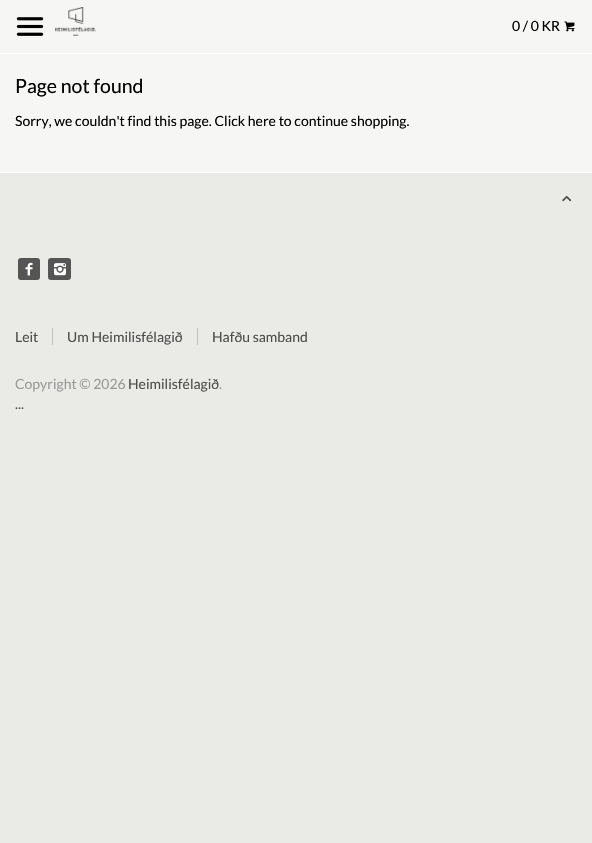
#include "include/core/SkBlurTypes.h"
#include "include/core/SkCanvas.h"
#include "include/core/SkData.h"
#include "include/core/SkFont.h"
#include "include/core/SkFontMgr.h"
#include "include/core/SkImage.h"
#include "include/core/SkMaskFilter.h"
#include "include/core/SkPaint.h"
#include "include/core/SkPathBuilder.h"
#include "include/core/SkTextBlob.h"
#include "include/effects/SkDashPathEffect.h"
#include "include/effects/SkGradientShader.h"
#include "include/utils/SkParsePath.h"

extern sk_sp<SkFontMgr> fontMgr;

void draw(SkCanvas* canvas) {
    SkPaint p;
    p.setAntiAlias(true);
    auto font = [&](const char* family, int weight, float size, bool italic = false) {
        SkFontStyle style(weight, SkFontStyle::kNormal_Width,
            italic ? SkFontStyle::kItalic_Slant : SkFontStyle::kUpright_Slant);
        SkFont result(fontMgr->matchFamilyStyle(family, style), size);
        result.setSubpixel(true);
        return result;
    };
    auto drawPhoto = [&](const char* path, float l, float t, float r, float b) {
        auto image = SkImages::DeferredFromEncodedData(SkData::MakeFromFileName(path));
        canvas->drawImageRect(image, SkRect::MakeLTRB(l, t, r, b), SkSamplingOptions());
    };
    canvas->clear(0xFFEAEBE7);
    p.setColor(0xFFF6F7F4);
    canvas->drawRect(SkRect::MakeLTRB(0, 0, 592, 172), p);
    p.setColor(0xFFFFFFFF);
    canvas->drawRect(SkRect::MakeLTRB(0, 53, 592, 54), p);
    drawPhoto("media/1.png", 16, 17, 44, 36);
    drawPhoto("media/2.png", 54, 7, 96, 36);
    auto font1 = font("Lato", 400, 14);
    p.setColor(0xFF000000);
    canvas->drawString("0 / 0 KR", 512, 31, font1, p);
    drawPhoto("media/3.png", 564, 21, 575, 32);
    auto font2 = font("Lato", 400, 19.5f);
    canvas->drawString("Page not found", 15, 93, font2, p);
    canvas->drawString("Sorry, we couldn't find this page. Click here to continue shopping.", 15, 126, font1, p);
    p.setColor(0xFFFFFFFF);
    canvas->drawRect(SkRect::MakeLTRB(0, 172, 592, 173), p);
    drawPhoto("media/4.png", 562, 196, 572, 202);
    p.setColor(0xFF555555);
    canvas->drawRoundRect(SkRect::MakeLTRB(18, 258, 40, 280), 3, 3, p);
    drawPhoto("media/5.png", 25, 262, 33, 276);
    canvas->drawRoundRect(SkRect::MakeLTRB(48, 258, 71, 280), 3, 3, p);
    drawPhoto("media/6.png", 54, 263, 66, 276);
    p.setColor(0xFF4D4D4D);
    canvas->drawString("Leit", 15, 342, font1, p);
    canvas->drawString("Um Heimilisfélagið", 67, 342, font1, p);
    p.setColor(0xFFC1C2C0);
    canvas->drawRect(SkRect::MakeLTRB(52, 328, 53, 345), p);
    p.setColor(0xFF4D4D4D);
    canvas->drawString("Hafðu samband", 212, 342, font1, p);
    p.setColor(0xFFC1C2C0);
    canvas->drawRect(SkRect::MakeLTRB(197, 328, 198, 345), p);
    p.setColor(0xFF999999);
    canvas->drawString("Copyright © 2026", 15, 389, font1, p);
    p.setColor(0xFF4D4D4D);
    canvas->drawString("Heimilisfélagið", 128, 389, font1, p);
    p.setColor(0xFF999999);
    canvas->drawString(".", 219, 389, font1, p);
    p.setColor(0xFF4D4D4D);
    canvas->drawString("...", 15, 409, font1, p);
}
